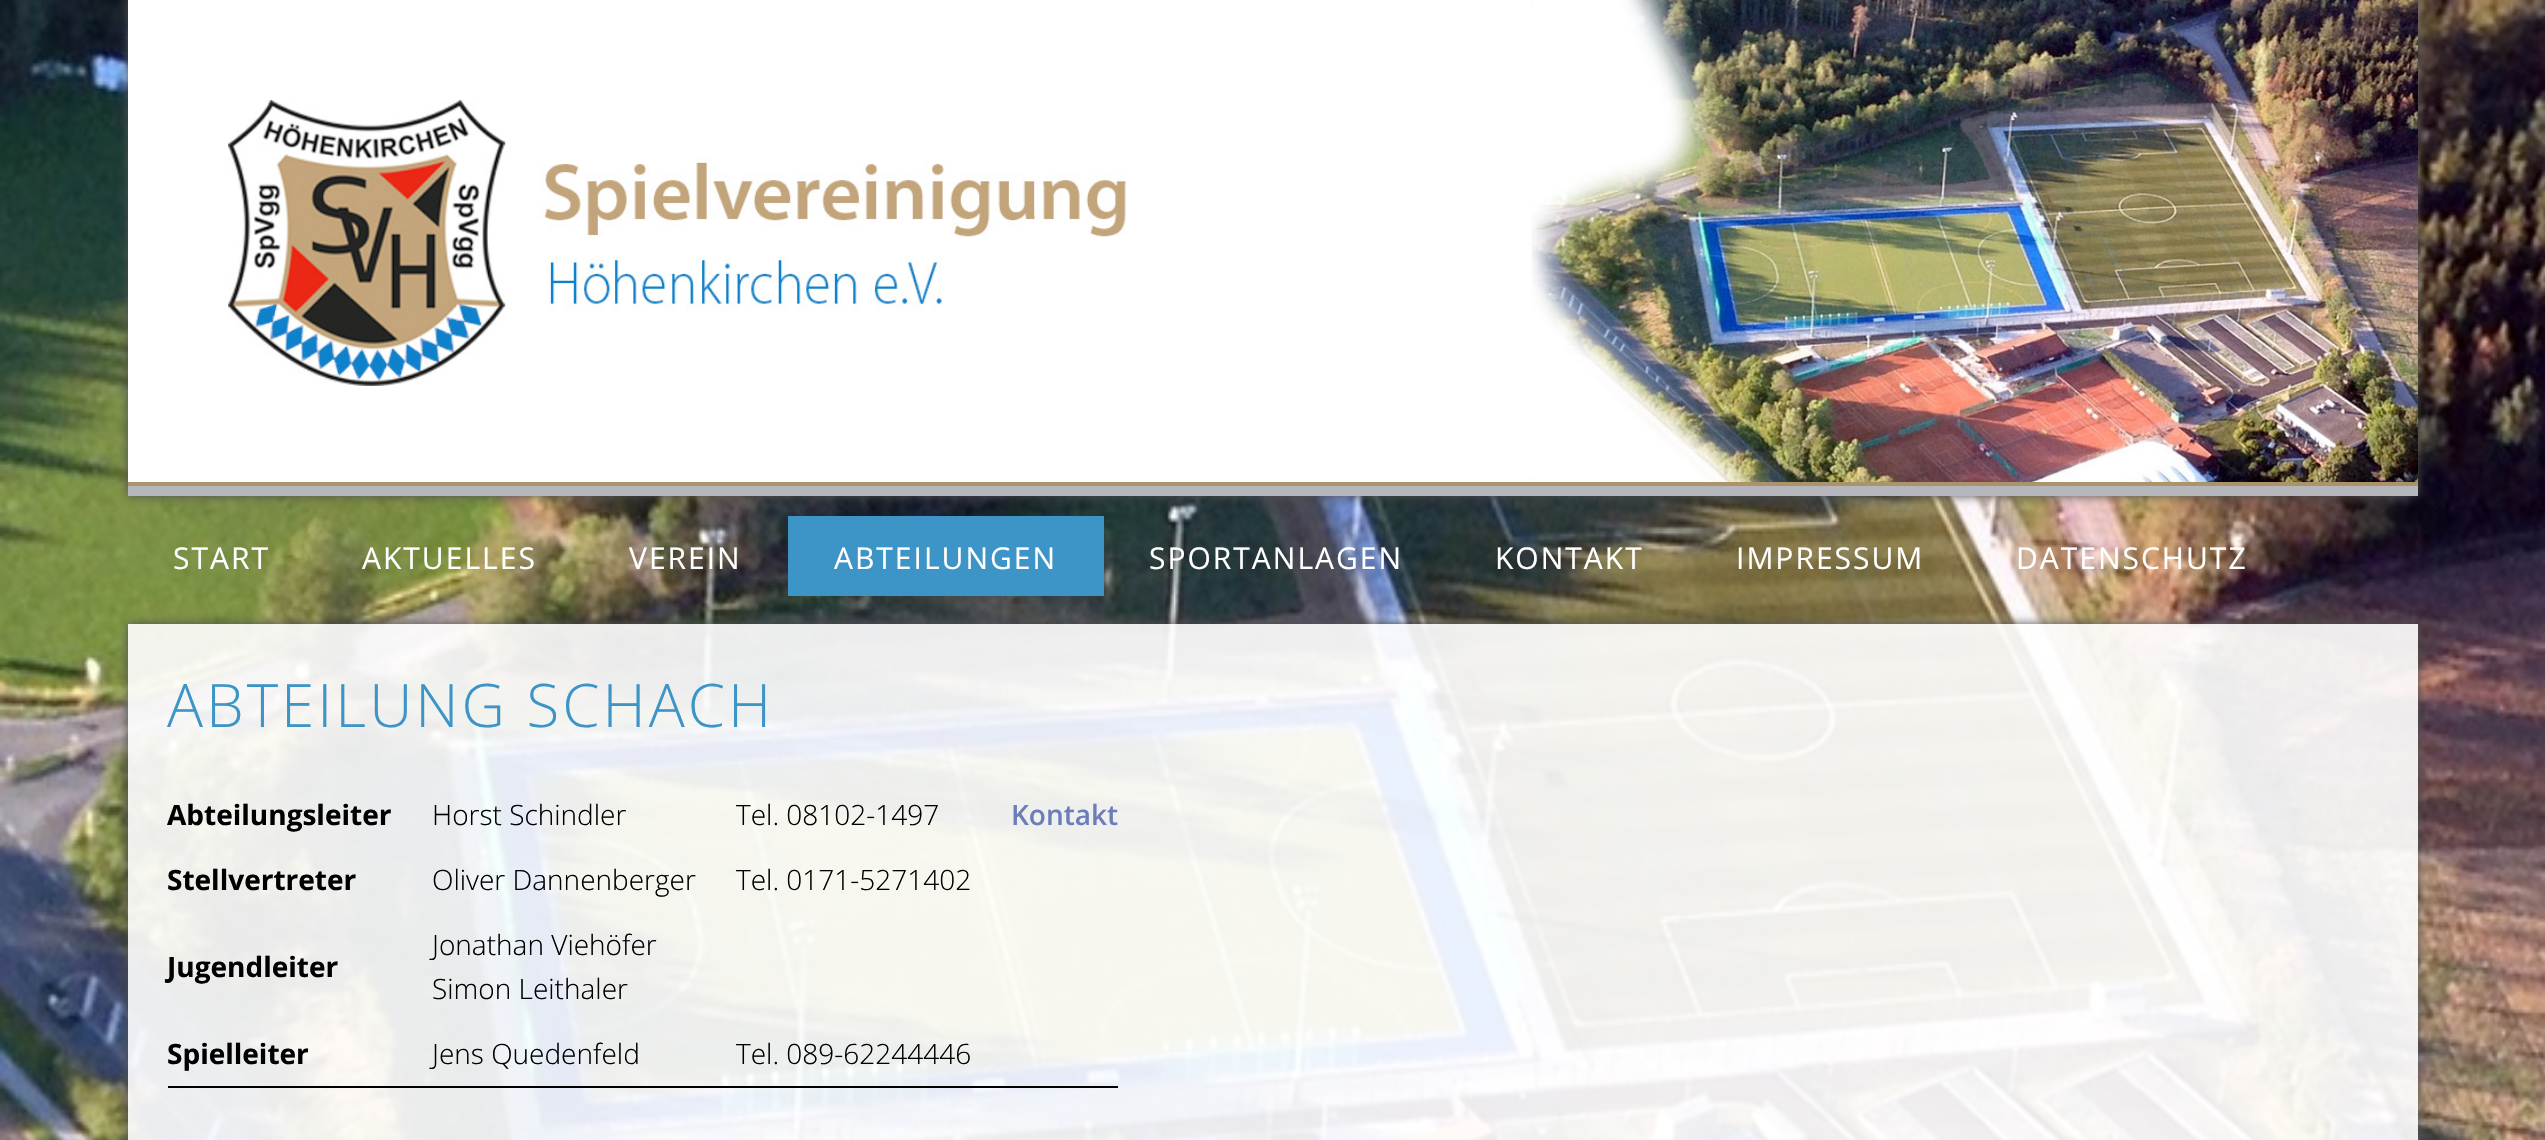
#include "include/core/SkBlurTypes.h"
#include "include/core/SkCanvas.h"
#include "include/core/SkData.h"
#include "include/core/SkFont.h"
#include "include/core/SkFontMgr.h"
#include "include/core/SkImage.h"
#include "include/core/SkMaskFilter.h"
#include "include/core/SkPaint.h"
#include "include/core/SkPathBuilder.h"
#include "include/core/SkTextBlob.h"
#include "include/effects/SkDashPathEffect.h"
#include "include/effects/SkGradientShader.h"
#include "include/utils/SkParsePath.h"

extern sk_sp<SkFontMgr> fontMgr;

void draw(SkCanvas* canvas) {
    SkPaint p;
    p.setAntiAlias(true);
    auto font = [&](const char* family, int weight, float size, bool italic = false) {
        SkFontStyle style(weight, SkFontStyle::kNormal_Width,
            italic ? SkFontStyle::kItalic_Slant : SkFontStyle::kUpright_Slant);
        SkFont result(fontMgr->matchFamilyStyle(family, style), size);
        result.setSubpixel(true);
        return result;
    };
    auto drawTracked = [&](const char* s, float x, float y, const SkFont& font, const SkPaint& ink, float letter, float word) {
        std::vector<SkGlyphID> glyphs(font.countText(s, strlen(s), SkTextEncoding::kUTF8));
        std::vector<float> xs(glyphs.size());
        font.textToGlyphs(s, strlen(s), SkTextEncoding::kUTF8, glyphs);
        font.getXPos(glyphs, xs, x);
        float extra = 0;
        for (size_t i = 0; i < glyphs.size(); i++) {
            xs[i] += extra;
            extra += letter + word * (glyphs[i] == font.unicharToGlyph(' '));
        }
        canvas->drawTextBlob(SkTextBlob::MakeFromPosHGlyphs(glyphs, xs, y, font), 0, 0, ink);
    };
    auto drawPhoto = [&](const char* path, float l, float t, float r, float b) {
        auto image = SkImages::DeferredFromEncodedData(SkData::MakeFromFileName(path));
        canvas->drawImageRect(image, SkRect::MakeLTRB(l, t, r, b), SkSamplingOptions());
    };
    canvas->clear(0xFFFFFFFF);
    drawPhoto("media/1.png", 0, 0, 2545, 1140);
    p.setColor(0xFF4F4F4F);
    p.setMaskFilter(SkMaskFilter::MakeBlur(kNormal_SkBlurStyle, 5));
    canvas->drawRect(SkRect::MakeLTRB(128, 0, 2418, 496), p);
    p.setMaskFilter(nullptr);
    p.setColor(0xFFFFFFFF);
    canvas->drawRect(SkRect::MakeLTRB(128, 0, 1531, 482), p);
    drawPhoto("media/2.png", 228, 100, 1126, 386);
    drawPhoto("media/3.png", 1531, 0, 2418, 482);
    p.setColor(0xFFB5B7BC);
    canvas->drawRect(SkRect::MakeLTRB(128, 486, 2418, 496), p);
    p.setColor(0xFFAC946A);
    canvas->drawRect(SkRect::MakeLTRB(128, 482, 2418, 486), p);
    auto font1 = font("Open Sans", 400, 30);
    p.setColor(0xFFFFFFFF);
    {
        const struct { const char* s; float x, y; } items[] = {
            {"START", 173, 569},
            {"AKTUELLES", 362, 569},
            {"VEREIN", 629, 569},
        };
        for (auto [s, x, y] : items) {
            drawTracked(s, x, y, font1, p, 2, 0);
        }
    }
    p.setColor(0xFF3D95C7);
    canvas->drawRect(SkRect::MakeLTRB(788, 516, 1104, 596), p);
    p.setColor(0xFFFFFFFF);
    {
        const struct { const char* s; float x, y; } items[] = {
            {"ABTEILUNGEN", 834, 569},
            {"SPORTANLAGEN", 1149, 569},
            {"KONTAKT", 1495, 569},
            {"IMPRESSUM", 1736, 569},
            {"DATENSCHUTZ", 2016, 569},
        };
        for (auto [s, x, y] : items) {
            drawTracked(s, x, y, font1, p, 2, 0);
        }
    }
    canvas->save();
    canvas->clipPath(SkPathBuilder(SkPathFillType::kEvenOdd).moveTo(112, 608).lineTo(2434, 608).lineTo(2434, 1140).lineTo(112, 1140).close().moveTo(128, 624).lineTo(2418, 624).lineTo(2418, 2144).lineTo(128, 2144).close().detach(), true);
    p.setColor(0xFF4F4F4F);
    p.setMaskFilter(SkMaskFilter::MakeBlur(kNormal_SkBlurStyle, 5));
    canvas->drawRect(SkRect::MakeLTRB(128, 624, 2418, 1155), p);
    p.setMaskFilter(nullptr);
    canvas->restore();
    p.setColor(0xE6FFFFFF);
    canvas->drawRect(SkRect::MakeLTRB(128, 624, 2418, 1140), p);
    auto font2 = font("Open Sans", 300, 60);
    p.setColor(0xFF3D95C7);
    drawTracked("ABTEILUNG SCHACH", 167, 727, font2, p, 3, 0);
    p.setColor(0xFF000000);
    canvas->drawRect(SkRect::MakeLTRB(168, 1086, 1118, 1088), p);
    auto font3 = font("Open Sans", 700, 28);
    canvas->drawString("Abteilungsleiter", 167, 825, font3, p);
    auto font4 = font("Open Sans", 300, 28);
    canvas->drawString("Horst Schindler", 432, 825, font4, p);
    canvas->drawString("Tel. 08102-1497", 736, 825, font4, p);
    auto font5 = font("Open Sans", 600, 28);
    p.setColor(0xFF6C7DBA);
    canvas->drawString("Kontakt", 1011, 825, font5, p);
    p.setColor(0xFF000000);
    canvas->drawString("Stellvertreter", 167, 890, font3, p);
    canvas->drawString("Oliver Dannenberger", 432, 890, font4, p);
    canvas->drawString("Tel. 0171-5271402", 736, 890, font4, p);
    canvas->drawString("Jugendleiter", 167, 977, font3, p);
    canvas->drawString("Jonathan Viehöfer", 432, 955, font4, p);
    canvas->drawString("Simon Leithaler", 432, 999, font4, p);
    canvas->drawString("Spielleiter", 167, 1064, font3, p);
    canvas->drawString("Jens Quedenfeld", 432, 1064, font4, p);
    canvas->drawString("Tel. 089-62244446", 736, 1064, font4, p);
}
